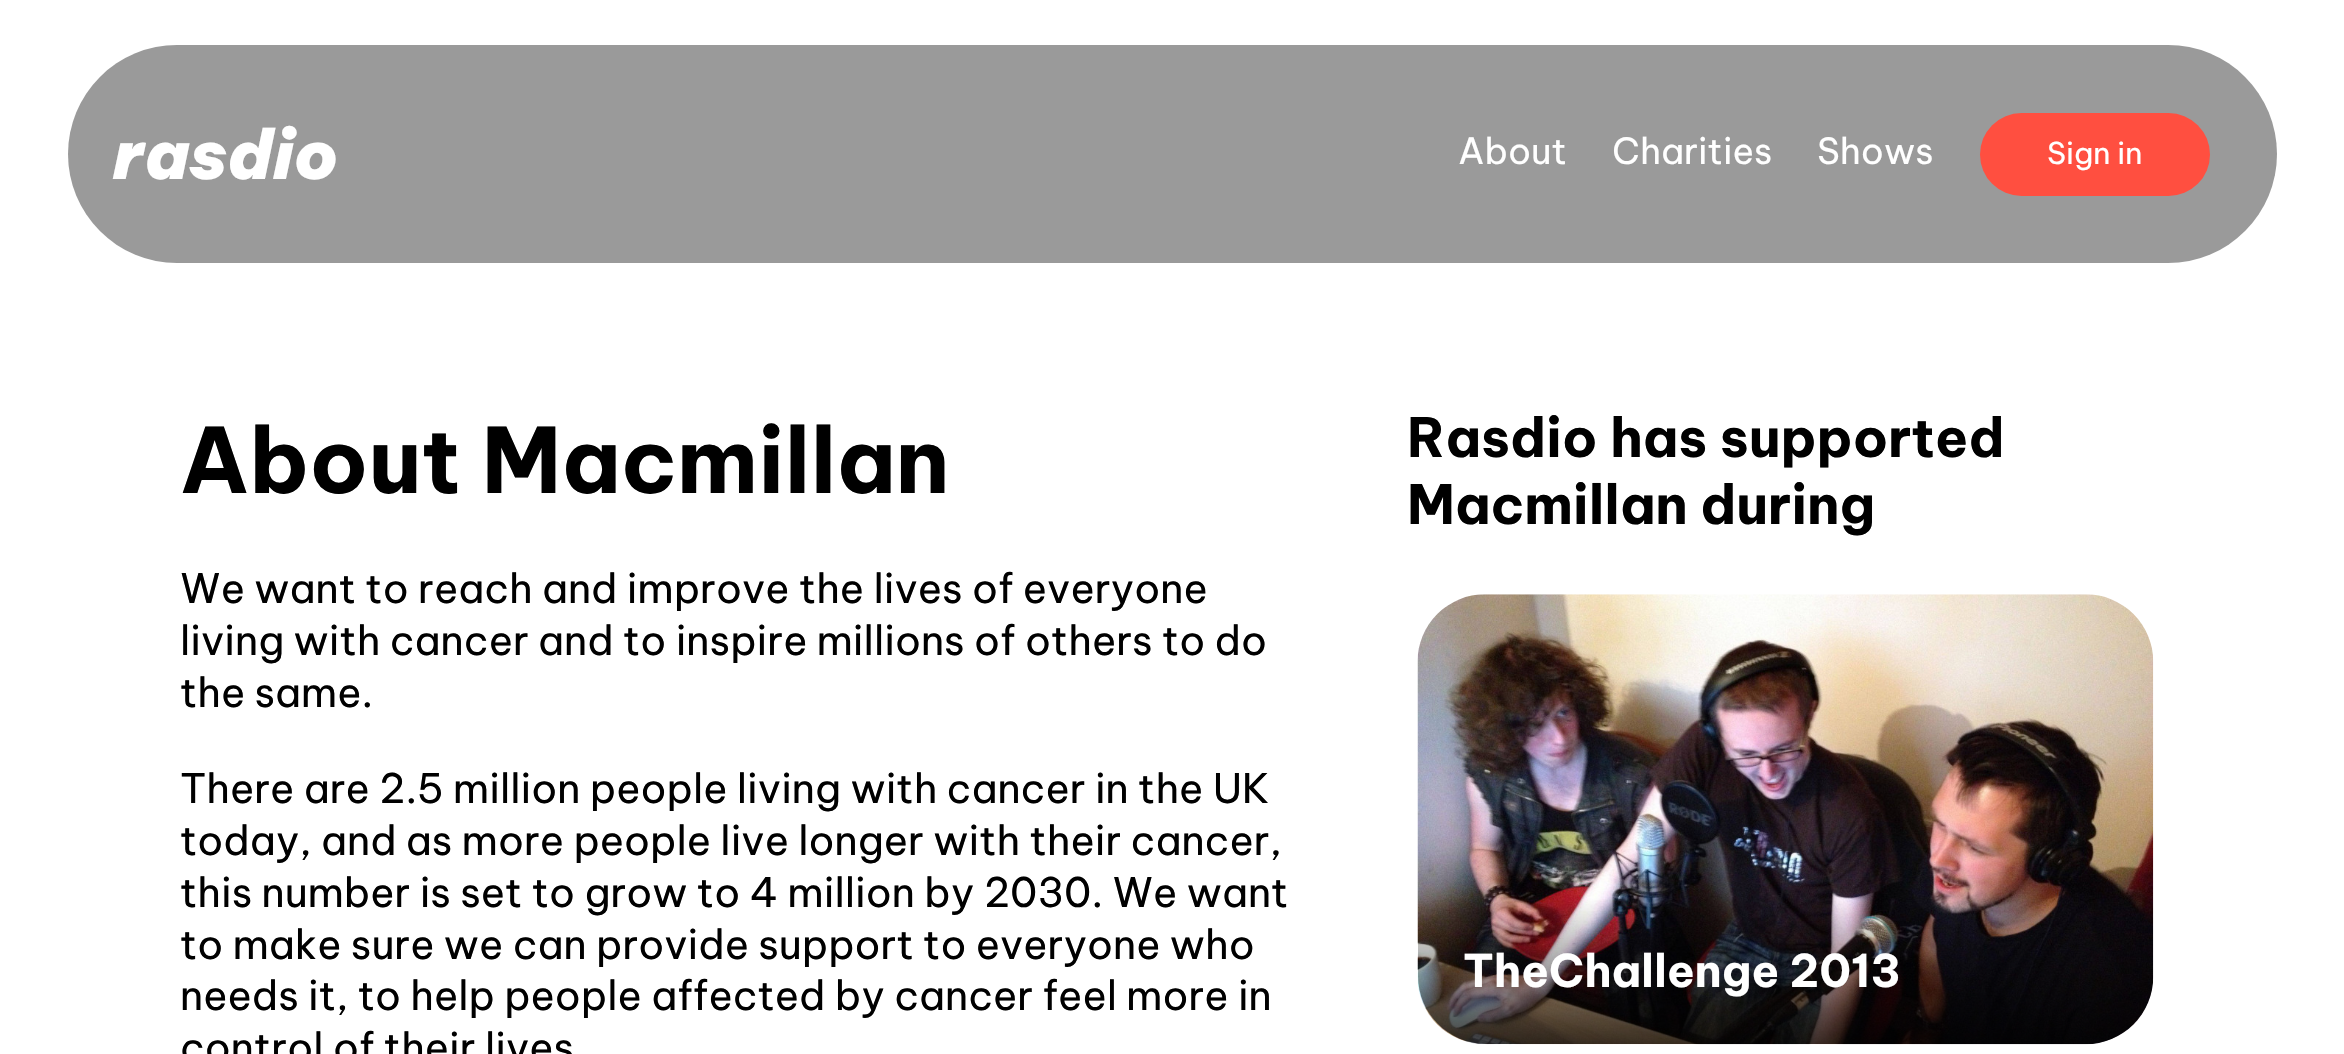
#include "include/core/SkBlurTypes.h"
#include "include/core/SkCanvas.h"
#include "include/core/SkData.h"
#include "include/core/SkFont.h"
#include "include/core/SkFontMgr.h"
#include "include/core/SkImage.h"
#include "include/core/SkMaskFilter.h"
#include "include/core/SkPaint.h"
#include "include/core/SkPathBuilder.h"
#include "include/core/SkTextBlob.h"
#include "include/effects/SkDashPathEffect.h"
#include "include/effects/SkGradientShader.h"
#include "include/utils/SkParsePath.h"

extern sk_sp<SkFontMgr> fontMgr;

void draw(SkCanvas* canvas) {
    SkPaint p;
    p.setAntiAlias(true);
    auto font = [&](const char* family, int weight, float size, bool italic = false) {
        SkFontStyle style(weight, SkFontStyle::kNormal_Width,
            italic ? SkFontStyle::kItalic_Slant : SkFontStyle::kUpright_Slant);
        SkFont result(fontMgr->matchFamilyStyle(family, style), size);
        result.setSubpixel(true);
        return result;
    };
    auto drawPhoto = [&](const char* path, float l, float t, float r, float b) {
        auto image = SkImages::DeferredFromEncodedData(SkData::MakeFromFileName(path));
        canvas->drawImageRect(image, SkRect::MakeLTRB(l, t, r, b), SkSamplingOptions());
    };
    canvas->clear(0xFFFFFFFF);
    p.setColor(0xFF9A9A9A);
    canvas->drawRoundRect(SkRect::MakeLTRB(68, 45, 2277, 263), 109, 109, p);
    auto font1 = font("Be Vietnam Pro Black", 900, 67.5f, true);
    p.setColor(0xFFFFFFFF);
    canvas->drawString("rasdio", 113, 179, font1, p);
    auto font2 = font("Be Vietnam Pro", 400, 36);
    {
        const struct { const char* s; float x, y; } items[] = {
            {"About", 1458, 164},
            {"Charities", 1612, 164},
            {"Shows", 1817, 164},
        };
        for (auto [s, x, y] : items) {
            canvas->drawString(s, x, y, font2, p);
        }
    }
    p.setColor(0xFFFF4F40);
    canvas->drawRoundRect(SkRect::MakeLTRB(1980, 113, 2210, 196), 41.5f, 41.5f, p);
    auto font3 = font("Be Vietnam Pro", 400, 30);
    p.setColor(0xFFFFFFFF);
    canvas->drawString("Sign in", 2047, 164, font3, p);
    auto font4 = font("Be Vietnam Pro", 700, 90);
    p.setColor(0xFF000000);
    canvas->drawString("About Macmillan", 180, 493, font4, p);
    auto font5 = font("Be Vietnam Pro", 400, 40.5f);
    {
        const struct { const char* s; float x, y; } items[] = {
            {"We want to reach and improve the lives of everyone", 180, 603},
            {"living with cancer and to inspire millions of others to do", 180, 655},
            {"the same.", 180, 707},
            {"There are 2.5 million people living with cancer in the UK", 180, 803},
            {"today, and as more people live longer with their cancer,", 180, 855},
            {"this number is set to grow to 4 million by 2030. We want", 180, 907},
            {"to make sure we can provide support to everyone who", 180, 959},
            {"needs it, to help people affected by cancer feel more in", 180, 1010},
            {"control of their lives", 180, 1062},
        };
        for (auto [s, x, y] : items) {
            canvas->drawString(s, x, y, font5, p);
        }
    }
    auto font6 = font("Be Vietnam Pro", 700, 54);
    canvas->drawString("Rasdio has supported", 1407, 457, font6, p);
    canvas->drawString("Macmillan during", 1407, 524, font6, p);
    drawPhoto("media/1.png", 1417, 594, 2154, 1045);
    {
        const SkColor colors[] = {0xBF000000, 0x00000000};
        const float stops[] = {0, 1};
        const SkPoint ends[] = {{1785, 1044}, {1785, 898}};
        p.setShader(SkGradientShader::MakeLinear(ends, colors, stops, 2, SkTileMode::kClamp));
        p.setAlpha(255);
    }
    canvas->drawPath(SkPathBuilder().moveTo(1418, 898).lineTo(2153, 898).lineTo(2153, 976).cubicTo(2153, 1013.5f, 2122.5f, 1044, 2085, 1044).lineTo(1486, 1044).cubicTo(1448.5f, 1044, 1418, 1013.5f, 1418, 976).close().detach(), p);
    auto font7 = font("Be Vietnam Pro", 700, 45);
    p.setShader(nullptr);
    p.setColor(0xFFFFFFFF);
    canvas->drawString("TheChallenge 2013", 1463, 987, font7, p);
}
